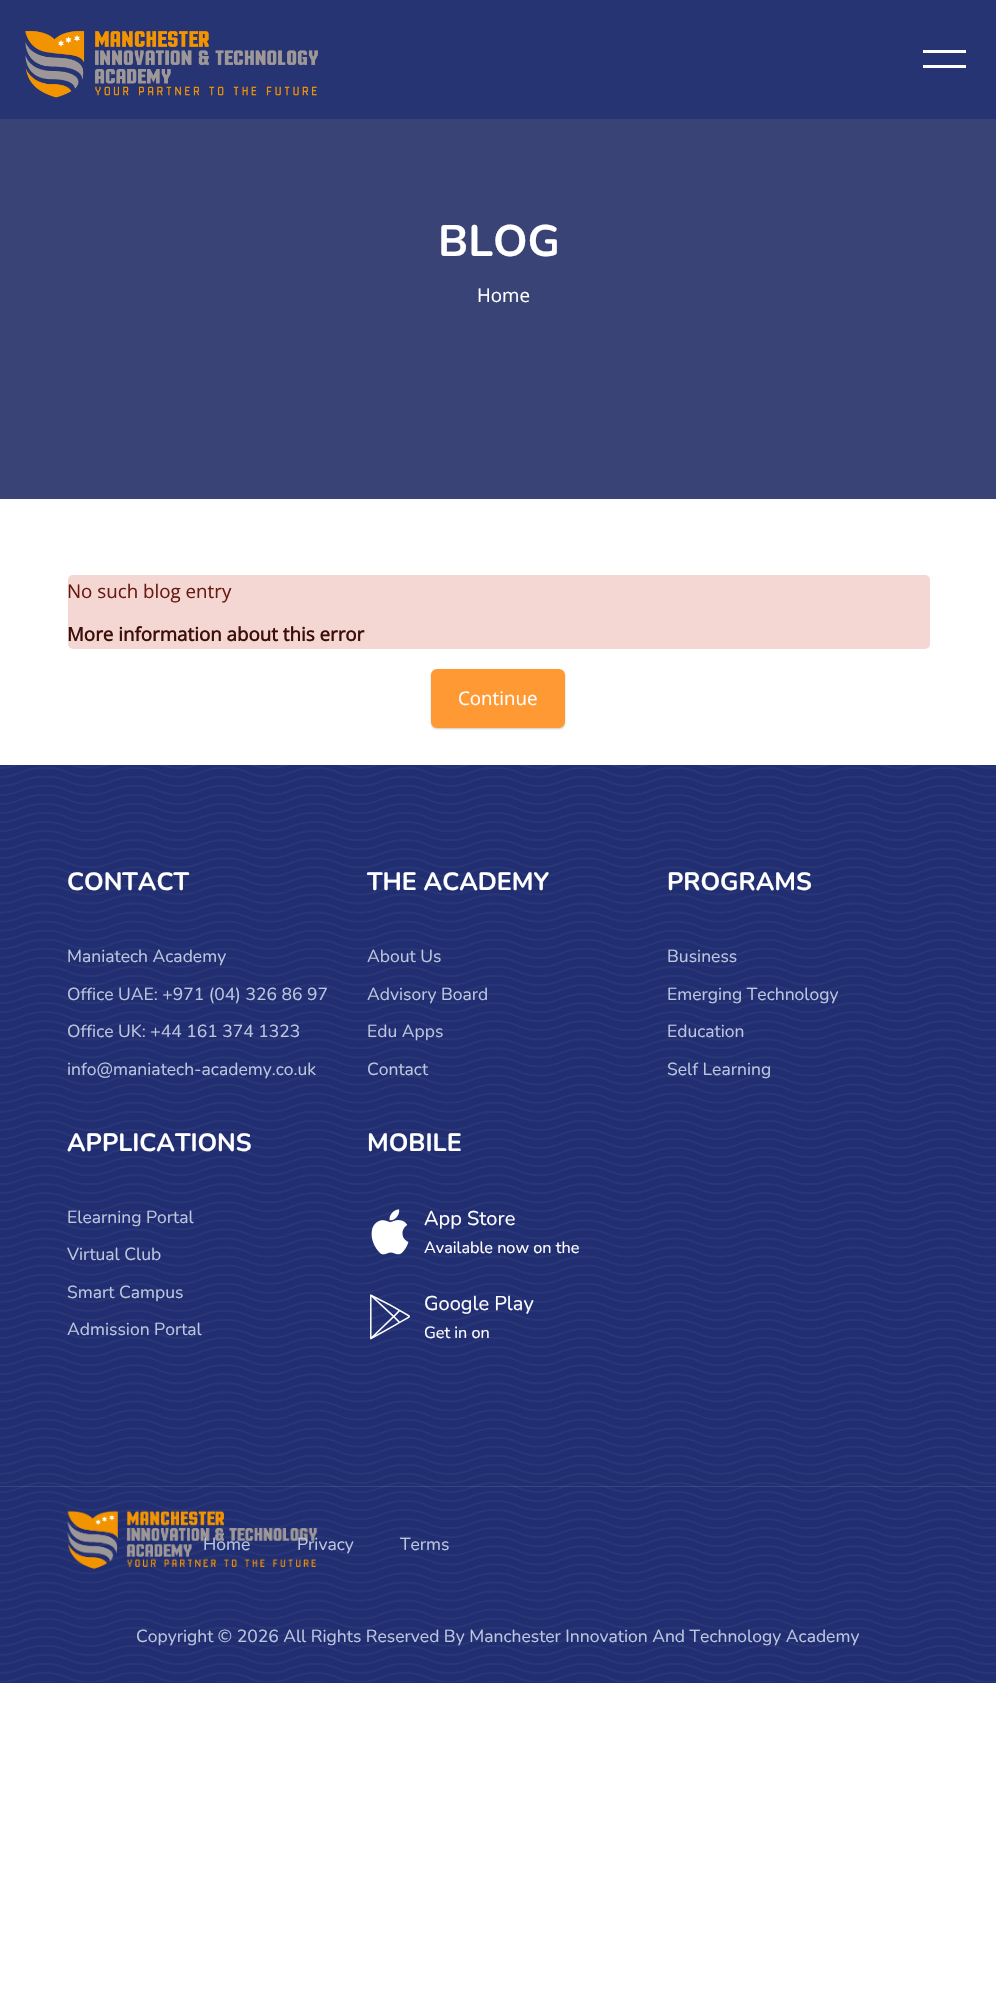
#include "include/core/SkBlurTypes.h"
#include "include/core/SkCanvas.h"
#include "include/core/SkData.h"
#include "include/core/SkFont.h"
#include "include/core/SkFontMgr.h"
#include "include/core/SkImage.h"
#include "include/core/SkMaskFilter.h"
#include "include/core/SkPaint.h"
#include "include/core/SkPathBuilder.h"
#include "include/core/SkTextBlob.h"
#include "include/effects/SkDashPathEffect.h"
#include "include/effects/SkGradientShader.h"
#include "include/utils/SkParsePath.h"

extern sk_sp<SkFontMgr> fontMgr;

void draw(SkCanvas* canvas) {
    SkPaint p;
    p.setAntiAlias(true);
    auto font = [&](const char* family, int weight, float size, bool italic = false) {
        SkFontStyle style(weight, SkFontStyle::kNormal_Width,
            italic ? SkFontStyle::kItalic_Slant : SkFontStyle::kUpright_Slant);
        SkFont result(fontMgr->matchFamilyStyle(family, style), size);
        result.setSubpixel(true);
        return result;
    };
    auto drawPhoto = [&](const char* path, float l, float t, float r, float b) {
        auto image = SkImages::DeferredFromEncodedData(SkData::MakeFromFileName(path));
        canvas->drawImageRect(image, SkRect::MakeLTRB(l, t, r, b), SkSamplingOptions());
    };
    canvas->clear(0xFFFFFFFF);
    p.setColor(0xFF273474);
    canvas->drawRect(SkRect::MakeLTRB(0, 0, 996, 119), p);
    drawPhoto("media/1.png", 25, 31, 318, 98);
    {
        const struct { float l, t, r, b; SkColor color; } items[] = {
            {923, 50, 966, 53, 0xFFFFFFFF},
            {923, 65, 966, 68, 0xFFFFFFFF},
            {0, 119, 996, 499, 0xFF394376},
        };
        for (auto [l, t, r, b, color] : items) {
            p.setColor(color);
            canvas->drawRect(SkRect::MakeLTRB(l, t, r, b), p);
        }
    }
    auto font1 = font("Nunito", 700, 44);
    p.setColor(0xFFFFFFFF);
    canvas->drawString("BLOG", 438, 256, font1, p);
    auto font2 = font("Open Sans", 400, 18.75f);
    canvas->drawString("Home", 477, 302, font2, p);
    p.setColor(0xFFF4D6D2);
    canvas->drawRoundRect(SkRect::MakeLTRB(68, 575, 930, 649), 5, 5, p);
    p.setColor(0xFF691911);
    canvas->drawString("No such blog entry", 67, 598, font2, p);
    auto font3 = font("Open Sans", 700, 18.75f);
    p.setColor(0xFF3D0F0A);
    canvas->drawString("More information about this error", 67, 641, font3, p);
    p.setColor(0x33000000);
    p.setMaskFilter(SkMaskFilter::MakeBlur(kNormal_SkBlurStyle, 1));
    canvas->drawRoundRect(SkRect::MakeLTRB(431, 670, 565, 729), 6, 6, p);
    p.setMaskFilter(nullptr);
    p.setColor(0xFFFF9933);
    canvas->drawRoundRect(SkRect::MakeLTRB(432.5f, 670.5f, 563.5f, 726.5f), 4.5f, 4.5f, p);
    p.setStyle(SkPaint::kStroke_Style);
    p.setStrokeWidth(3);
    canvas->drawRoundRect(SkRect::MakeLTRB(432.5f, 670.5f, 563.5f, 726.5f), 4.5f, 4.5f, p);
    p.setStyle(SkPaint::kFill_Style);
    p.setColor(0xFFFFFFFF);
    canvas->drawString("Continue", 458, 705, font2, p);
    p.setColor(0xFF212E71);
    canvas->drawRect(SkRect::MakeLTRB(0, 765, 996, 1683), p);
    drawPhoto("media/2.png", 0, 765, 996, 1682);
    auto font4 = font("Nunito", 700, 25);
    p.setColor(0xFFFFFFFF);
    canvas->drawString("CONTACT", 67, 890, font4, p);
    auto font5 = font("Nunito", 400, 17.5f);
    p.setColor(0xFFBCC6DE);
    {
        const struct { const char* s; float x, y; } items[] = {
            {"Maniatech Academy", 67, 962},
            {"Office UAE: +971 (04) 326 86 97", 67, 1000},
            {"Office UK: +44 161 374 1323", 67, 1037},
            {"info@maniatech-academy.co.uk", 67, 1075},
        };
        for (auto [s, x, y] : items) {
            canvas->drawString(s, x, y, font5, p);
        }
    }
    p.setColor(0xFFFFFFFF);
    canvas->drawString("THE ACADEMY", 367, 890, font4, p);
    p.setColor(0xFFBCC6DE);
    {
        const struct { const char* s; float x, y; } items[] = {
            {"About Us", 367, 962},
            {"Advisory Board", 367, 1000},
            {"Edu Apps", 367, 1037},
            {"Contact", 367, 1075},
        };
        for (auto [s, x, y] : items) {
            canvas->drawString(s, x, y, font5, p);
        }
    }
    p.setColor(0xFFFFFFFF);
    canvas->drawString("PROGRAMS", 667, 890, font4, p);
    p.setColor(0xFFBCC6DE);
    {
        const struct { const char* s; float x, y; } items[] = {
            {"Business", 667, 962},
            {"Emerging Technology", 667, 1000},
            {"Education", 667, 1037},
            {"Self Learning", 667, 1075},
        };
        for (auto [s, x, y] : items) {
            canvas->drawString(s, x, y, font5, p);
        }
    }
    p.setColor(0xFFFFFFFF);
    canvas->drawString("APPLICATIONS", 67, 1151, font4, p);
    p.setColor(0xFFBCC6DE);
    {
        const struct { const char* s; float x, y; } items[] = {
            {"Elearning Portal", 67, 1223},
            {"Virtual Club", 67, 1260},
            {"Smart Campus", 67, 1298},
            {"Admission Portal", 67, 1335},
        };
        for (auto [s, x, y] : items) {
            canvas->drawString(s, x, y, font5, p);
        }
    }
    p.setColor(0xFFFFFFFF);
    canvas->drawString("MOBILE", 367, 1151, font4, p);
    drawPhoto("media/3.png", 371, 1209, 409, 1255);
    auto font6 = font("Nunito", 400, 20);
    canvas->drawString("App Store", 424, 1225, font6, p);
    auto font7 = font("Nunito", 400, 16.25f);
    canvas->drawString("Available now on the", 424, 1253, font7, p);
    drawPhoto("media/4.png", 370, 1294, 410, 1340);
    canvas->drawString("Google Play", 424, 1310, font6, p);
    canvas->drawString("Get in on", 424, 1338, font7, p);
    p.setColor(0x1AFFFFFF);
    canvas->drawRect(SkRect::MakeLTRB(0, 1486, 996, 1487), p);
    drawPhoto("media/5.png", 67, 1510, 318, 1569);
    p.setColor(0xFFBCC6DE);
    {
        const struct { const char* s; float x, y; } items[] = {
            {"Home", 203, 1550},
            {"Privacy", 297, 1550},
            {"Terms", 400, 1550},
            {"Copyright © 2026 All Rights Reserved By Manchester Innovation And Technology Academy", 136, 1642},
        };
        for (auto [s, x, y] : items) {
            canvas->drawString(s, x, y, font5, p);
        }
    }
}
